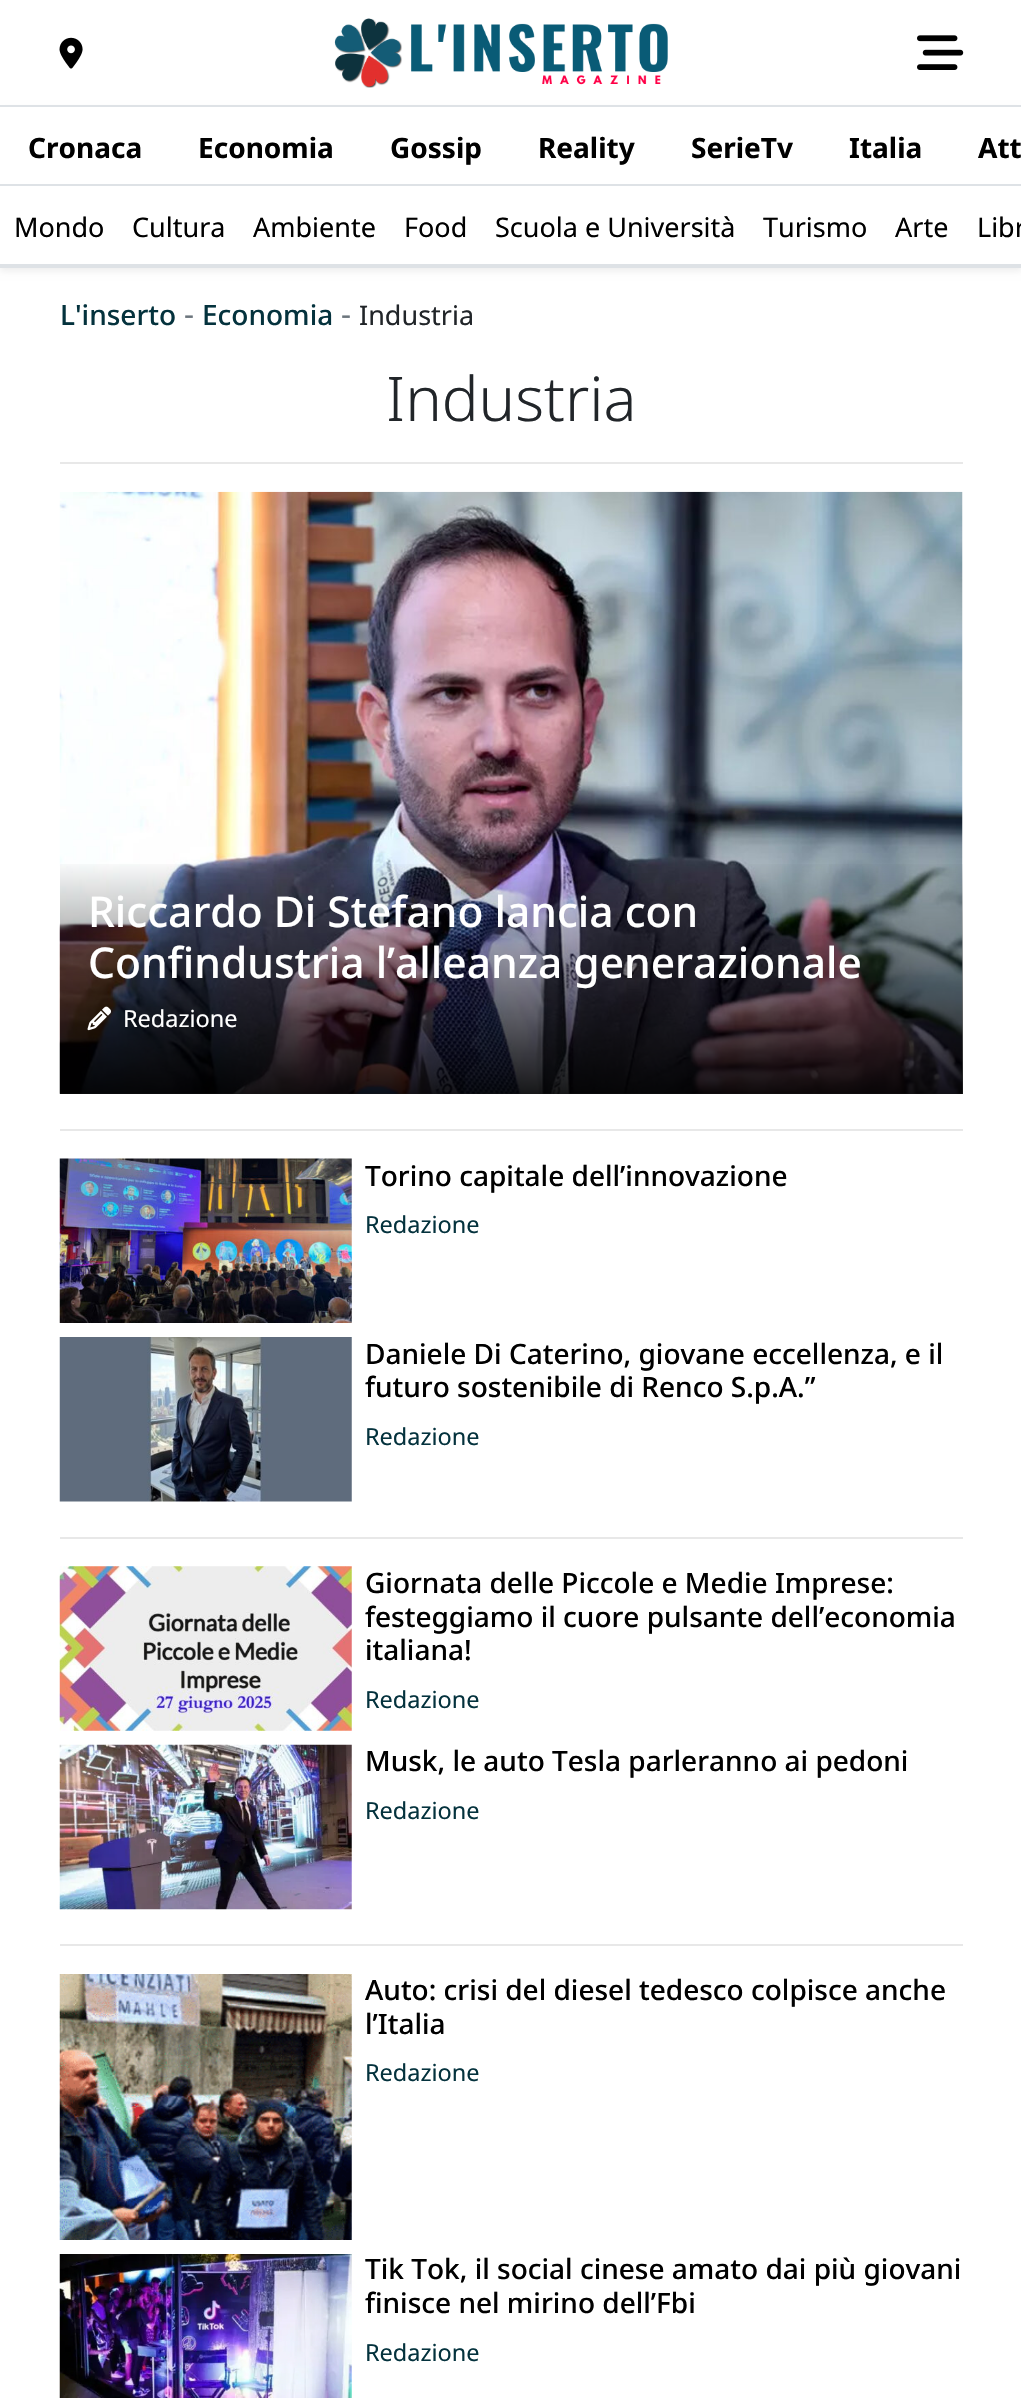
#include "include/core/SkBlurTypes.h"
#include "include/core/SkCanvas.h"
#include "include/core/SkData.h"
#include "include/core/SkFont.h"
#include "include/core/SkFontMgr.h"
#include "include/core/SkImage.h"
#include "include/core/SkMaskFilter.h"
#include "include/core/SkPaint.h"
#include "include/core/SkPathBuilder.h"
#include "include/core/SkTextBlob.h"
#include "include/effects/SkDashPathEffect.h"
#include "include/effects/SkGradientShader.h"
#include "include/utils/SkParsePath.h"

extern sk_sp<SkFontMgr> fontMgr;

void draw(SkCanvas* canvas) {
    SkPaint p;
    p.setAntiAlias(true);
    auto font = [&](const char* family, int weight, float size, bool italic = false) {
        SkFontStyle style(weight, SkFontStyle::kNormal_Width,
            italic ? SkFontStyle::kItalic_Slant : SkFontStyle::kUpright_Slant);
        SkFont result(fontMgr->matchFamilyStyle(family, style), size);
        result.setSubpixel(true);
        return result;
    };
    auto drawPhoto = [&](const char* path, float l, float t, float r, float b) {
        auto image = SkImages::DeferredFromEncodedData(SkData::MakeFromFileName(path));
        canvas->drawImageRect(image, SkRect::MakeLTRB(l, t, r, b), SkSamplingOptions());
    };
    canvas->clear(0xFFFFFFFF);
    p.setColor(0x12000000);
    p.setMaskFilter(SkMaskFilter::MakeBlur(kNormal_SkBlurStyle, 3.5f));
    canvas->drawRect(SkRect::MakeLTRB(0, 110, 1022, 271), p);
    p.setMaskFilter(nullptr);
    p.setColor(0xFFDEE2E6);
    canvas->drawRect(SkRect::MakeLTRB(0, 105, 1021, 107), p);
    drawPhoto("media/1.png", 59, 37, 83, 69);
    drawPhoto("media/2.png", 334, 18, 668, 88);
    drawPhoto("media/3.png", 917, 35, 964, 70);
    {
        const struct { float l, t, r, b; SkColor color; } items[] = {
            {0, 107, 1021, 264, 0xFFFFFFFF},
            {0, 264, 1021, 268, 0xFFDEE2E6},
            {0, 184, 1021, 186, 0xFFDEE2E6},
        };
        for (auto [l, t, r, b, color] : items) {
            p.setColor(color);
            canvas->drawRect(SkRect::MakeLTRB(l, t, r, b), p);
        }
    }
    auto font1 = font("Noto Sans", 700, 28);
    p.setColor(0xFF000000);
    {
        const struct { const char* s; float x, y; } items[] = {
            {"Cronaca", 28, 158},
            {"Economia", 198, 158},
            {"Gossip", 390, 158},
            {"Reality", 538, 158},
            {"SerieTv", 691, 158},
            {"Italia", 849, 158},
            {"Att", 978, 158},
        };
        for (auto [s, x, y] : items) {
            canvas->drawString(s, x, y, font1, p);
        }
    }
    auto font2 = font("Noto Sans", 400, 27);
    {
        const struct { const char* s; float x, y; } items[] = {
            {"Mondo", 14, 237},
            {"Cultura", 132, 237},
            {"Ambiente", 253, 237},
            {"Food", 404, 237},
            {"Scuola e Università", 495, 237},
            {"Turismo", 763, 237},
            {"Arte", 895, 237},
            {"Libr", 977, 237},
        };
        for (auto [s, x, y] : items) {
            canvas->drawString(s, x, y, font2, p);
        }
    }
    auto font3 = font("Noto Sans", 500, 28);
    p.setColor(0xFF04323D);
    canvas->drawString("L'inserto", 60, 325, font3, p);
    auto font4 = font("Noto Sans", 400, 31);
    p.setColor(0xFF6C757D);
    canvas->drawString("-", 184, 325, font4, p);
    p.setColor(0xFF04323D);
    canvas->drawString("Economia", 202, 325, font3, p);
    p.setColor(0xFF6C757D);
    canvas->drawString("-", 341, 325, font4, p);
    p.setColor(0xFF212529);
    canvas->drawString("Industria", 359, 325, font2, p);
    auto font5 = font("Noto Sans", 300, 61.5f);
    canvas->drawString("Industria", 386, 421, font5, p);
    p.setColor(0xFFE8E8E8);
    canvas->drawRect(SkRect::MakeLTRB(60, 462, 963, 464), p);
    drawPhoto("media/4.png", 59, 491, 963, 1094);
    {
        const SkColor colors[] = {0x00000000, 0xE6000000};
        const float stops[] = {0, 1};
        const SkPoint ends[] = {{511, 858}, {511, 1094}};
        p.setShader(SkGradientShader::MakeLinear(ends, colors, stops, 2, SkTileMode::kClamp));
        p.setAlpha(255);
    }
    canvas->drawRect(SkRect::MakeLTRB(60, 864, 963, 1094), p);
    auto font6 = font("Noto Sans", 500, 42.5f);
    p.setShader(nullptr);
    p.setColor(0xFFFFFFFF);
    canvas->drawString("Riccardo Di Stefano lancia con", 88, 927, font6, p);
    canvas->drawString("Confindustria l’alleanza generazionale", 88, 978, font6, p);
    drawPhoto("media/5.png", 87, 1006, 111, 1031);
    auto font7 = font("Noto Sans", 400, 23.5f);
    canvas->drawString("Redazione", 123, 1027, font7, p);
    p.setColor(0xFFE8E8E8);
    canvas->drawRect(SkRect::MakeLTRB(60, 1129, 963, 1131), p);
    drawPhoto("media/6.png", 59, 1158, 352, 1323);
    p.setColor(0xFF000000);
    canvas->drawString("Torino capitale dell’innovazione", 365, 1186, font3, p);
    p.setColor(0xFF04323D);
    canvas->drawString("Redazione", 365, 1233, font7, p);
    drawPhoto("media/7.png", 59, 1337, 352, 1502);
    p.setColor(0xFF000000);
    canvas->drawString("Daniele Di Caterino, giovane eccellenza, e il", 365, 1364, font3, p);
    canvas->drawString("futuro sostenibile di Renco S.p.A.”", 365, 1397, font3, p);
    p.setColor(0xFF04323D);
    canvas->drawString("Redazione", 365, 1445, font7, p);
    p.setColor(0xFFE8E8E8);
    canvas->drawRect(SkRect::MakeLTRB(60, 1537, 963, 1539), p);
    drawPhoto("media/8.png", 59, 1566, 352, 1731);
    p.setColor(0xFF000000);
    {
        const struct { const char* s; float x, y; } items[] = {
            {"Giornata delle Piccole e Medie Imprese:", 365, 1593},
            {"festeggiamo il cuore pulsante dell’economia", 365, 1627},
            {"italiana!", 365, 1660},
        };
        for (auto [s, x, y] : items) {
            canvas->drawString(s, x, y, font3, p);
        }
    }
    p.setColor(0xFF04323D);
    canvas->drawString("Redazione", 365, 1708, font7, p);
    drawPhoto("media/9.png", 59, 1744, 352, 1910);
    p.setColor(0xFF000000);
    canvas->drawString("Musk, le auto Tesla parleranno ai pedoni", 365, 1771, font3, p);
    p.setColor(0xFF04323D);
    canvas->drawString("Redazione", 365, 1819, font7, p);
    p.setColor(0xFFE8E8E8);
    canvas->drawRect(SkRect::MakeLTRB(60, 1944, 963, 1946), p);
    drawPhoto("media/10.png", 59, 1974, 352, 2240);
    p.setColor(0xFF000000);
    canvas->drawString("Auto: crisi del diesel tedesco colpisce anche", 365, 2000, font3, p);
    canvas->drawString("l’Italia", 365, 2034, font3, p);
    p.setColor(0xFF04323D);
    canvas->drawString("Redazione", 365, 2081, font7, p);
    drawPhoto("media/11.png", 59, 2254, 352, 2398);
    p.setColor(0xFF000000);
    canvas->drawString("Tik Tok, il social cinese amato dai più giovani", 365, 2279, font3, p);
    canvas->drawString("finisce nel mirino dell’Fbi", 365, 2313, font3, p);
    p.setColor(0xFF04323D);
    canvas->drawString("Redazione", 365, 2361, font7, p);
}
